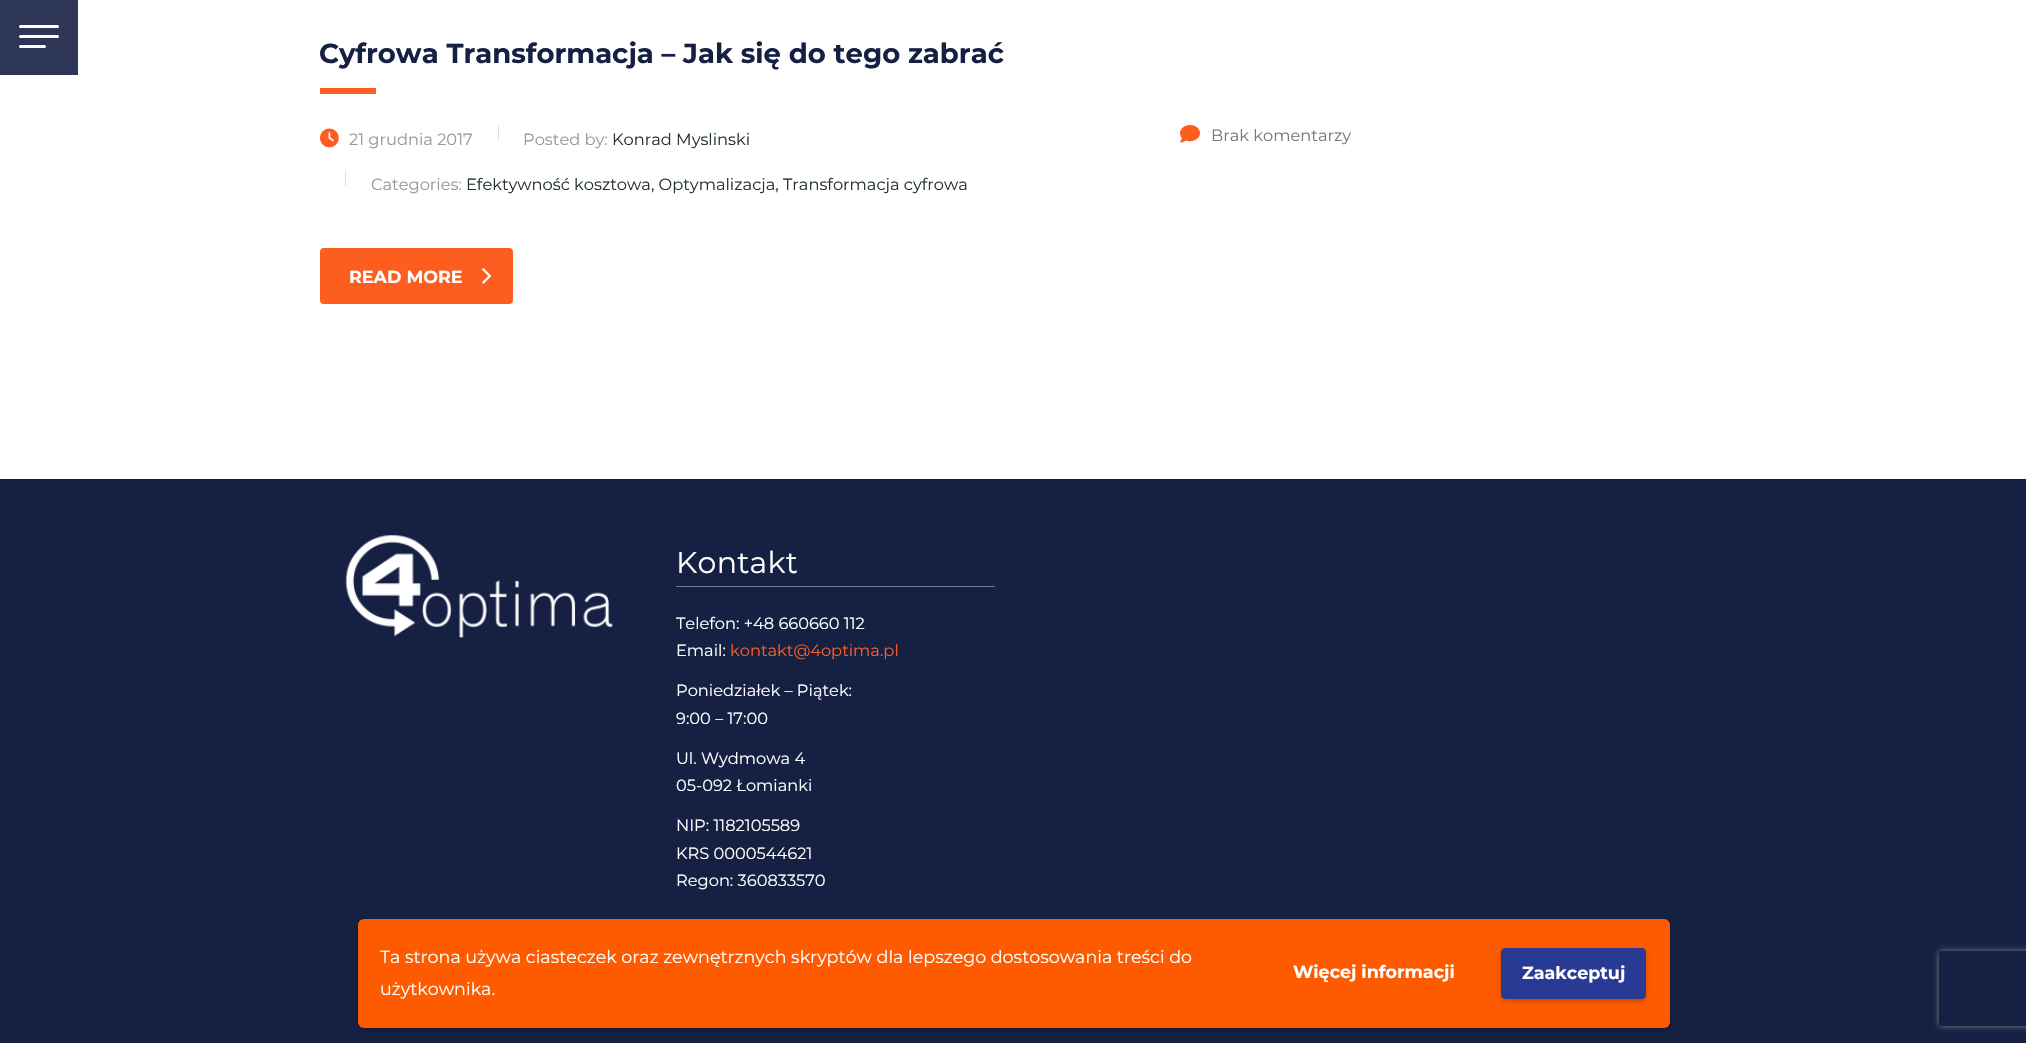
#include "include/core/SkBlurTypes.h"
#include "include/core/SkCanvas.h"
#include "include/core/SkData.h"
#include "include/core/SkFont.h"
#include "include/core/SkFontMgr.h"
#include "include/core/SkImage.h"
#include "include/core/SkMaskFilter.h"
#include "include/core/SkPaint.h"
#include "include/core/SkPathBuilder.h"
#include "include/core/SkTextBlob.h"
#include "include/effects/SkDashPathEffect.h"
#include "include/effects/SkGradientShader.h"
#include "include/utils/SkParsePath.h"

extern sk_sp<SkFontMgr> fontMgr;

void draw(SkCanvas* canvas) {
    SkPaint p;
    p.setAntiAlias(true);
    auto font = [&](const char* family, int weight, float size, bool italic = false) {
        SkFontStyle style(weight, SkFontStyle::kNormal_Width,
            italic ? SkFontStyle::kItalic_Slant : SkFontStyle::kUpright_Slant);
        SkFont result(fontMgr->matchFamilyStyle(family, style), size);
        result.setSubpixel(true);
        return result;
    };
    auto drawTracked = [&](const char* s, float x, float y, const SkFont& font, const SkPaint& ink, float letter, float word) {
        std::vector<SkGlyphID> glyphs(font.countText(s, strlen(s), SkTextEncoding::kUTF8));
        std::vector<float> xs(glyphs.size());
        font.textToGlyphs(s, strlen(s), SkTextEncoding::kUTF8, glyphs);
        font.getXPos(glyphs, xs, x);
        float extra = 0;
        for (size_t i = 0; i < glyphs.size(); i++) {
            xs[i] += extra;
            extra += letter + word * (glyphs[i] == font.unicharToGlyph(' '));
        }
        canvas->drawTextBlob(SkTextBlob::MakeFromPosHGlyphs(glyphs, xs, y, font), 0, 0, ink);
    };
    auto drawPhoto = [&](const char* path, float l, float t, float r, float b) {
        auto image = SkImages::DeferredFromEncodedData(SkData::MakeFromFileName(path));
        canvas->drawImageRect(image, SkRect::MakeLTRB(l, t, r, b), SkSamplingOptions());
    };
    canvas->clear(0xFFFFFFFF);
    p.setColor(0xFF2D3656);
    canvas->drawRect(SkRect::MakeLTRB(0, 0, 78, 75), p);
    p.setColor(0xFFFFFFFF);
    canvas->drawRoundRect(SkRect::MakeLTRB(19, 35, 59, 38), 1.5f, 1.5f, p);
    canvas->drawRoundRect(SkRect::MakeLTRB(19, 25, 59, 28), 1.5f, 1.5f, p);
    canvas->drawRoundRect(SkRect::MakeLTRB(19, 45, 46, 48), 1.5f, 1.5f, p);
    auto font1 = font("Montserrat", 700, 27.5f);
    p.setColor(0xFF162043);
    canvas->drawString("Cyfrowa Transformacja – Jak się do tego zabrać", 319, 63, font1, p);
    p.setColor(0xFFFD5E1F);
    canvas->drawRect(SkRect::MakeLTRB(320, 88, 376, 94), p);
    drawPhoto("media/1.png", 320, 128, 339, 148);
    auto font2 = font("Montserrat", 400, 16.25f);
    p.setColor(0xFF999999);
    canvas->drawString("21 grudnia 2017", 349, 145, font2, p);
    p.setColor(0xFFDDDDDD);
    canvas->drawRect(SkRect::MakeLTRB(498, 126, 499, 141), p);
    p.setColor(0xFF999999);
    canvas->drawString("Posted by:", 523, 145, font2, p);
    p.setColor(0xFF243238);
    canvas->drawString("Konrad Myslinski", 612, 145, font2, p);
    p.setColor(0xFFDDDDDD);
    canvas->drawRect(SkRect::MakeLTRB(345, 171, 346, 186), p);
    p.setColor(0xFF999999);
    canvas->drawString("Categories:", 371, 190, font2, p);
    p.setColor(0xFF243238);
    canvas->drawString("Efektywność kosztowa, Optymalizacja, Transformacja cyfrowa", 466, 190, font2, p);
    drawPhoto("media/2.png", 1180, 125, 1200, 143);
    p.setColor(0xFF777777);
    canvas->drawString("Brak komentarzy", 1211, 141, font2, p);
    p.setColor(0xFFFD5E1F);
    canvas->drawRoundRect(SkRect::MakeLTRB(322, 250, 511, 302), 2, 2, p);
    p.setStyle(SkPaint::kStroke_Style);
    p.setStrokeWidth(4);
    canvas->drawRoundRect(SkRect::MakeLTRB(322, 250, 511, 302), 2, 2, p);
    auto font3 = font("Montserrat", 700, 17.5f);
    p.setStyle(SkPaint::kFill_Style);
    p.setColor(0xFFFFFFFF);
    canvas->drawString("READ MORE", 349, 283, font3, p);
    drawPhoto("media/3.png", 482, 268, 491, 284);
    p.setColor(0xFF162043);
    canvas->drawRect(SkRect::MakeLTRB(0, 479, 2026, 1043), p);
    drawPhoto("media/4.png", 345, 535, 613, 638);
    p.setColor(0xFF717688);
    canvas->drawRect(SkRect::MakeLTRB(676, 586, 995, 587), p);
    auto font4 = font("Montserrat", 400, 30);
    p.setColor(0xFFFFFFFF);
    drawTracked("Kontakt", 676, 573, font4, p, 0.25f, 0);
    canvas->drawString("Telefon: +48 660660 112", 676, 629, font2, p);
    canvas->drawString("Email:", 676, 656, font2, p);
    p.setColor(0xFFFD5E1F);
    canvas->drawString("kontakt@4optima.pl", 730, 656, font2, p);
    p.setColor(0xFFFFFFFF);
    {
        const struct { const char* s; float x, y; } items[] = {
            {"Poniedziałek – Piątek:", 676, 696},
            {"9:00 – 17:00", 676, 724},
            {"Ul. Wydmowa 4", 676, 764},
            {"05-092 Łomianki", 676, 791},
            {"NIP: 1182105589", 676, 831},
            {"KRS 0000544621", 676, 859},
            {"Regon: 360833570", 676, 886},
        };
        for (auto [s, x, y] : items) {
            canvas->drawString(s, x, y, font2, p);
        }
    }
    p.setColor(0x33000000);
    p.setMaskFilter(SkMaskFilter::MakeBlur(kNormal_SkBlurStyle, 2.5f));
    canvas->drawRoundRect(SkRect::MakeLTRB(358, 921, 1670, 1030), 6, 6, p);
    p.setMaskFilter(nullptr);
    p.setColor(0xFFFE5B00);
    canvas->drawRoundRect(SkRect::MakeLTRB(358, 919, 1670, 1028), 6, 6, p);
    auto font5 = font("Montserrat", 400, 17.5f);
    p.setColor(0xFFFFFFFF);
    canvas->drawString("Ta strona używa ciasteczek oraz zewnętrznych skryptów dla lepszego dostosowania treści do", 380, 963, font5, p);
    canvas->drawString("użytkownika.", 380, 995, font5, p);
    canvas->drawString("Więcej informacji", 1293, 978, font3, p);
    p.setColor(0x33000000);
    p.setMaskFilter(SkMaskFilter::MakeBlur(kNormal_SkBlurStyle, 2.5f));
    canvas->drawRoundRect(SkRect::MakeLTRB(1501, 950, 1646, 1001), 4, 4, p);
    p.setMaskFilter(nullptr);
    p.setColor(0xFF293A94);
    canvas->drawRoundRect(SkRect::MakeLTRB(1501.5f, 948.5f, 1645.5f, 998.5f), 3.5f, 3.5f, p);
    p.setStyle(SkPaint::kStroke_Style);
    p.setStrokeWidth(1);
    canvas->drawRoundRect(SkRect::MakeLTRB(1501.5f, 948.5f, 1645.5f, 998.5f), 3.5f, 3.5f, p);
    p.setStyle(SkPaint::kFill_Style);
    p.setColor(0xFFFFFFFF);
    canvas->drawString("Zaakceptuj", 1522, 979, font3, p);
    canvas->save();
    canvas->clipPath(SkPathBuilder(SkPathFillType::kEvenOdd).moveTo(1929, 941).lineTo(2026, 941).lineTo(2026, 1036).lineTo(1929, 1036).close().moveTo(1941.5f, 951).lineTo(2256.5f, 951).cubicTo(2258, 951, 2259, 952, 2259, 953.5f).lineTo(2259, 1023.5f).cubicTo(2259, 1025, 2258, 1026, 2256.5f, 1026).lineTo(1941.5f, 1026).cubicTo(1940, 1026, 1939, 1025, 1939, 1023.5f).lineTo(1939, 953.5f).cubicTo(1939, 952, 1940, 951, 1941.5f, 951).close().detach(), true);
    p.setColor(0xFF808080);
    p.setMaskFilter(SkMaskFilter::MakeBlur(kNormal_SkBlurStyle, 3));
    canvas->drawRoundRect(SkRect::MakeLTRB(1939, 951, 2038, 1026), 2.5f, 2.5f, p);
    p.setMaskFilter(nullptr);
    canvas->restore();
}
